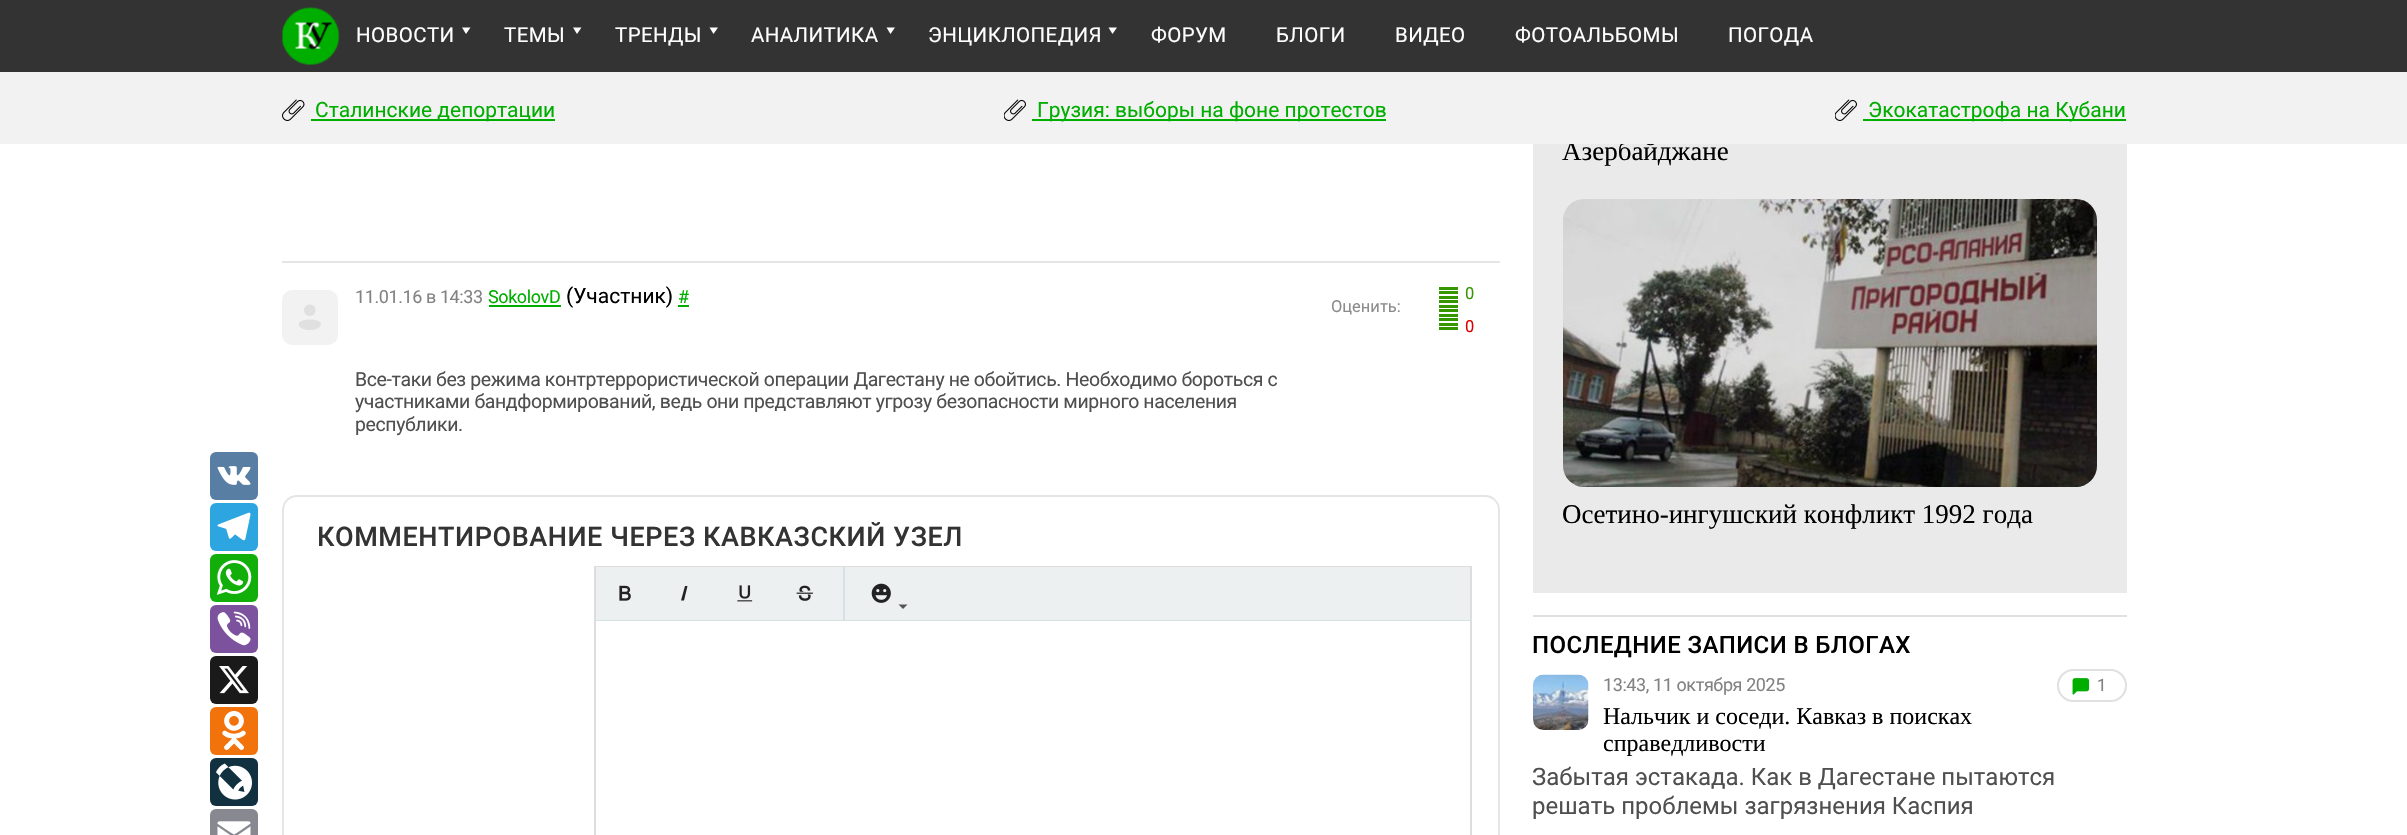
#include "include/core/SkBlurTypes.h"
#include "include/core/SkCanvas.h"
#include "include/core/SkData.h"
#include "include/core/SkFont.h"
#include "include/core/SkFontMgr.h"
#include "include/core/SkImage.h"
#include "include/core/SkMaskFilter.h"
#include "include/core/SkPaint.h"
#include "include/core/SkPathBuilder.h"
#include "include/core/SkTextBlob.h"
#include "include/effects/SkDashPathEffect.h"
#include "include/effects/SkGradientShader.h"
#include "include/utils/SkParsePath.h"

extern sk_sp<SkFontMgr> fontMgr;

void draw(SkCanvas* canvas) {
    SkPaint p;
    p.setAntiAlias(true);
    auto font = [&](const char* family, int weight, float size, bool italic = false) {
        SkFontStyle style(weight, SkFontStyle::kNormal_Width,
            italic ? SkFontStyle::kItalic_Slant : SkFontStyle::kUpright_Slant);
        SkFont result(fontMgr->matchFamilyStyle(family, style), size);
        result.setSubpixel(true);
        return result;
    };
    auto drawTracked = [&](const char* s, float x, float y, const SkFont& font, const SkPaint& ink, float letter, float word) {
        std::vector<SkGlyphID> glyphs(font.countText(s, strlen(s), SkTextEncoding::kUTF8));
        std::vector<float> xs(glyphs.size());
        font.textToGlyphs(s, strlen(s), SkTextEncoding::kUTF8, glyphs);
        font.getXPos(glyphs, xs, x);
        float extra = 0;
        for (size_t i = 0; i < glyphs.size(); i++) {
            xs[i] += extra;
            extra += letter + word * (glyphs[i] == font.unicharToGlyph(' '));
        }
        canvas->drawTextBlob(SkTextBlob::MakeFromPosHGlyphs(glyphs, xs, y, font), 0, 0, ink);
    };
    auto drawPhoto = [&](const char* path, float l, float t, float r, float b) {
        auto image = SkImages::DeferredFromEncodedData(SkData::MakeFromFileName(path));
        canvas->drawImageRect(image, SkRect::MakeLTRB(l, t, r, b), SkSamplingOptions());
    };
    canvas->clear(0xFFFFFFFF);
    p.setColor(0xFF333333);
    canvas->drawRect(SkRect::MakeLTRB(0, 0, 2407, 72), p);
    drawPhoto("media/1.png", 282, 7, 340, 65);
    auto font1 = font("Roboto", 400, 20.5f);
    p.setColor(0xFFFFFFFF);
    drawTracked("НОВОСТИ", 356, 42, font1, p, 0.4f, 0);
    canvas->drawPath(SkPathBuilder().moveTo(466, 34).lineTo(470.5f, 27.5f).lineTo(462, 27.5f).close().detach(), p);
    drawTracked("ТЕМЫ", 504, 42, font1, p, 0.4f, 0);
    canvas->drawPath(SkPathBuilder().moveTo(577, 34).lineTo(581.5f, 27.5f).lineTo(573, 27.5f).close().detach(), p);
    drawTracked("ТРЕНДЫ", 615, 42, font1, p, 0.4f, 0);
    canvas->drawPath(SkPathBuilder().moveTo(713.5f, 34).lineTo(718, 27.5f).lineTo(709.5f, 27.5f).close().detach(), p);
    drawTracked("АНАЛИТИКА", 751, 42, font1, p, 0.4f, 0);
    canvas->drawPath(SkPathBuilder().moveTo(890.5f, 34).lineTo(895, 27.5f).lineTo(886.5f, 27.5f).close().detach(), p);
    drawTracked("ЭНЦИКЛОПЕДИЯ", 928, 42, font1, p, 0.4f, 0);
    canvas->drawPath(SkPathBuilder().moveTo(1112.5f, 34).lineTo(1117, 27.5f).lineTo(1108.5f, 27.5f).close().detach(), p);
    {
        const struct { const char* s; float x, y; } items[] = {
            {"ФОРУМ", 1151, 42},
            {"БЛОГИ", 1276, 42},
            {"ВИДЕО", 1395, 42},
            {"ФОТОАЛЬБОМЫ", 1515, 42},
            {"ПОГОДА", 1728, 42},
        };
        for (auto [s, x, y] : items) {
            drawTracked(s, x, y, font1, p, 0.4f, 0);
        }
    }
    p.setColor(0xFFEAEAEA);
    canvas->drawRect(SkRect::MakeLTRB(1533, 144, 2127, 593), p);
    auto font2 = font("Liberation Serif", 400, 27);
    p.setColor(0xFF000000);
    canvas->drawString("Азербайджане", 1562, 160, font2, p);
    p.setColor(0xFFF2F2F2);
    canvas->drawRect(SkRect::MakeLTRB(0, 72, 2407, 144), p);
    drawPhoto("media/2.png", 282, 99, 305, 121);
    p.setColor(0xFF00AE00);
    canvas->drawRect(SkRect::MakeLTRB(311, 119, 555, 121), p);
    auto font3 = font("Roboto", 400, 21);
    canvas->drawString("Сталинские депортации", 315, 117, font3, p);
    drawPhoto("media/3.png", 1004, 99, 1026, 121);
    canvas->drawRect(SkRect::MakeLTRB(1032, 119, 1386, 121), p);
    canvas->drawString("Грузия: выборы на фоне протестов", 1037, 117, font3, p);
    drawPhoto("media/3.png", 1835, 99, 1857, 121);
    canvas->drawRect(SkRect::MakeLTRB(1863, 119, 2126, 121), p);
    canvas->drawString("Экокатастрофа на Кубани", 1868, 117, font3, p);
    p.setColor(0xFFE5E5E5);
    canvas->drawRect(SkRect::MakeLTRB(282, 261, 1500, 263), p);
    p.setColor(0xFFF2F2F2);
    canvas->drawRoundRect(SkRect::MakeLTRB(282, 290, 338, 345), 10, 10, p);
    p.setColor(0xFFE0E0E0);
    canvas->drawPath(SkPathBuilder().moveTo(310, 304.5f).cubicTo(317.5f, 304.5f, 317.5f, 316, 310, 316).cubicTo(302, 316, 302, 304.5f, 310, 304.5f).close().moveTo(310, 319.5f).cubicTo(326, 319.5f, 323, 330, 310, 330).cubicTo(296.5f, 330, 293.5f, 319.5f, 310, 319.5f).close().detach(), p);
    auto font4 = font("Roboto", 400, 18);
    p.setColor(0xFF828282);
    drawTracked("11.01.16 в 14:33", 355, 303, font4, p, -0.4f, 0);
    p.setColor(0xFF00AE00);
    drawTracked("SokolovD", 488, 303, font4, p, -0.4f, 0);
    canvas->drawRect(SkRect::MakeLTRB(489, 305, 561, 307), p);
    p.setColor(0xFF000000);
    canvas->drawString("(Участник)", 566, 303, font3, p);
    p.setColor(0xFF00AE00);
    drawTracked("#", 678, 303, font4, p, -0.4f, 0);
    canvas->drawRect(SkRect::MakeLTRB(678, 305, 689, 307), p);
    auto font5 = font("Roboto", 400, 19.5f);
    p.setColor(0xFF4F4F4F);
    {
        const struct { const char* s; float x, y; } items[] = {
            {"Все-таки без режима контртеррористической операции Дагестану не обойтись. Необходимо бороться с", 355, 386},
            {"участниками бандформирований, ведь они представляют угрозу безопасности мирного населения", 355, 408},
            {"республики.", 355, 431},
        };
        for (auto [s, x, y] : items) {
            drawTracked(s, x, y, font5, p, -0.4f, 0);
        }
    }
    {
        const struct { float l, t, r, b; SkColor color; } items[] = {
            {1439, 287, 1458, 290, 0xFF359600},
            {1439, 291, 1458, 294, 0xFF359600},
            {1439, 296, 1458, 299, 0xFF359600},
            {1439, 300, 1458, 303, 0xFF359600},
            {1439, 305, 1458, 308, 0xFF359600},
            {1439, 309, 1458, 312, 0xFF359600},
            {1439, 314, 1458, 317, 0xFF359600},
            {1439, 318, 1458, 321, 0xFF359600},
            {1439, 323, 1458, 326, 0xFF359600},
            {1439, 327, 1458, 330, 0xFF359600},
        };
        for (auto [l, t, r, b, color] : items) {
            p.setColor(color);
            canvas->drawRect(SkRect::MakeLTRB(l, t, r, b), p);
        }
    }
    auto font6 = font("Roboto", 400, 16.5f);
    canvas->drawString("0", 1465, 299, font6, p);
    p.setColor(0xFF8C8C8C);
    canvas->drawString("Оценить:", 1331, 312, font6, p);
    p.setColor(0xFFDC0000);
    canvas->drawString("0", 1465, 332, font6, p);
    p.setStyle(SkPaint::kStroke_Style);
    p.setStrokeWidth(2);
    p.setColor(0xFFE5E5E5);
    canvas->drawRoundRect(SkRect::MakeLTRB(283, 496, 1499, 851), 14, 14, p);
    auto font7 = font("Roboto", 500, 27);
    p.setStyle(SkPaint::kFill_Style);
    p.setColor(0xFF333333);
    drawTracked("КОММЕНТИРОВАНИЕ ЧЕРЕЗ КАВКАЗСКИЙ УЗЕЛ", 317, 546, font7, p, 0.55f, 0);
    p.setStyle(SkPaint::kStroke_Style);
    p.setColor(0xFFDDDDDD);
    canvas->drawRect(SkRect::MakeLTRB(595, 567, 1471, 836), p);
    p.setStyle(SkPaint::kFill_Style);
    p.setColor(0xFFECF0F1);
    canvas->drawRect(SkRect::MakeLTRB(596, 567, 1470, 620), p);
    p.setColor(0xFFD7E0E2);
    canvas->drawRect(SkRect::MakeLTRB(596, 620, 1470, 621), p);
    drawPhoto("media/4.png", 619, 585, 631, 601);
    p.setColor(0xFF222222);
    canvas->drawPath(SkPathBuilder().moveTo(681, 600.5f).lineTo(685, 586).lineTo(687.5f, 586).lineTo(684, 600.5f).close().detach(), p);
    drawPhoto("media/5.png", 737, 585, 753, 602);
    drawPhoto("media/6.png", 796, 585, 813, 601);
    p.setColor(0xFFD7E0E2);
    canvas->drawRect(SkRect::MakeLTRB(843, 567, 845, 620), p);
    drawPhoto("media/7.png", 871, 583, 891, 603);
    p.setColor(0xFF555555);
    canvas->drawPath(SkPathBuilder().moveTo(898.5f, 604.5f).lineTo(907.5f, 604.5f).lineTo(903, 609).close().detach(), p);
    p.setColor(0xFF587EA3);
    canvas->drawRoundRect(SkRect::MakeLTRB(210, 452, 258, 500), 6, 6, p);
    drawPhoto("media/8.png", 217, 466, 251, 485);
    p.setColor(0xFF2CA5E0);
    canvas->drawRoundRect(SkRect::MakeLTRB(210, 503, 258, 551), 6, 6, p);
    drawPhoto("media/9.png", 217, 512, 251, 541);
    p.setColor(0xFF12AF0A);
    canvas->drawRoundRect(SkRect::MakeLTRB(210, 554, 258, 602), 6, 6, p);
    drawPhoto("media/10.png", 216, 560, 252, 595);
    p.setColor(0xFF7C529E);
    canvas->drawRoundRect(SkRect::MakeLTRB(210, 605, 258, 653), 6, 6, p);
    drawPhoto("media/11.png", 217, 611, 251, 646);
    p.setColor(0xFF1A1A1A);
    canvas->drawRoundRect(SkRect::MakeLTRB(210, 656, 258, 704), 6, 6, p);
    drawPhoto("media/12.png", 219, 666, 249, 694);
    p.setColor(0xFFF2720C);
    canvas->drawRoundRect(SkRect::MakeLTRB(210, 707, 258, 755), 6, 6, p);
    drawPhoto("media/13.png", 222, 711, 246, 750);
    p.setColor(0xFF113140);
    canvas->drawRoundRect(SkRect::MakeLTRB(210, 758, 258, 806), 6, 6, p);
    drawPhoto("media/14.png", 216, 763, 252, 800);
    p.setColor(0xFF888990);
    canvas->drawRoundRect(SkRect::MakeLTRB(210, 809, 258, 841), 6, 6, p);
    drawPhoto("media/15.png", 217, 821, 251, 835);
    drawPhoto("media/16.png", 1563, 199, 2097, 487);
    p.setColor(0xFF000000);
    canvas->drawString("Осетино-ингушский конфликт 1992 года", 1562, 523, font2, p);
    p.setColor(0xFFE0E0E0);
    canvas->drawRect(SkRect::MakeLTRB(1533, 615, 2127, 617), p);
    auto font8 = font("Roboto", 500, 24);
    p.setColor(0xFF000000);
    drawTracked("ПОСЛЕДНИЕ ЗАПИСИ В БЛОГАХ", 1532, 653, font8, p, 0.4f, 0);
    drawPhoto("media/17.png", 1533, 674, 1589, 730);
    p.setColor(0xFF828282);
    drawTracked("13:43, 11 октября 2025", 1603, 691, font4, p, -0.4f, 0);
    auto font9 = font("Liberation Serif", 400, 24);
    p.setColor(0xFF000000);
    canvas->drawString("Нальчик и соседи. Кавказ в поисках", 1603, 724, font9, p);
    canvas->drawString("справедливости", 1603, 751, font9, p);
    drawPhoto("media/18.png", 2072, 678, 2090, 695);
    p.setStyle(SkPaint::kStroke_Style);
    p.setColor(0xFFE0E0E0);
    canvas->drawRoundRect(SkRect::MakeLTRB(2058, 670, 2126, 701), 15.5f, 15.5f, p);
    auto font10 = font("Roboto", 400, 17);
    p.setStyle(SkPaint::kFill_Style);
    p.setColor(0xFF828282);
    drawTracked("1", 2097, 691, font10, p, -0.4f, 0);
    auto font11 = font("Roboto", 400, 24);
    p.setColor(0xFF4F4F4F);
    canvas->drawString("Забытая эстакада. Как в Дагестане пытаются", 1532, 785, font11, p);
    canvas->drawString("решать проблемы загрязнения Каспия", 1532, 814, font11, p);
}
